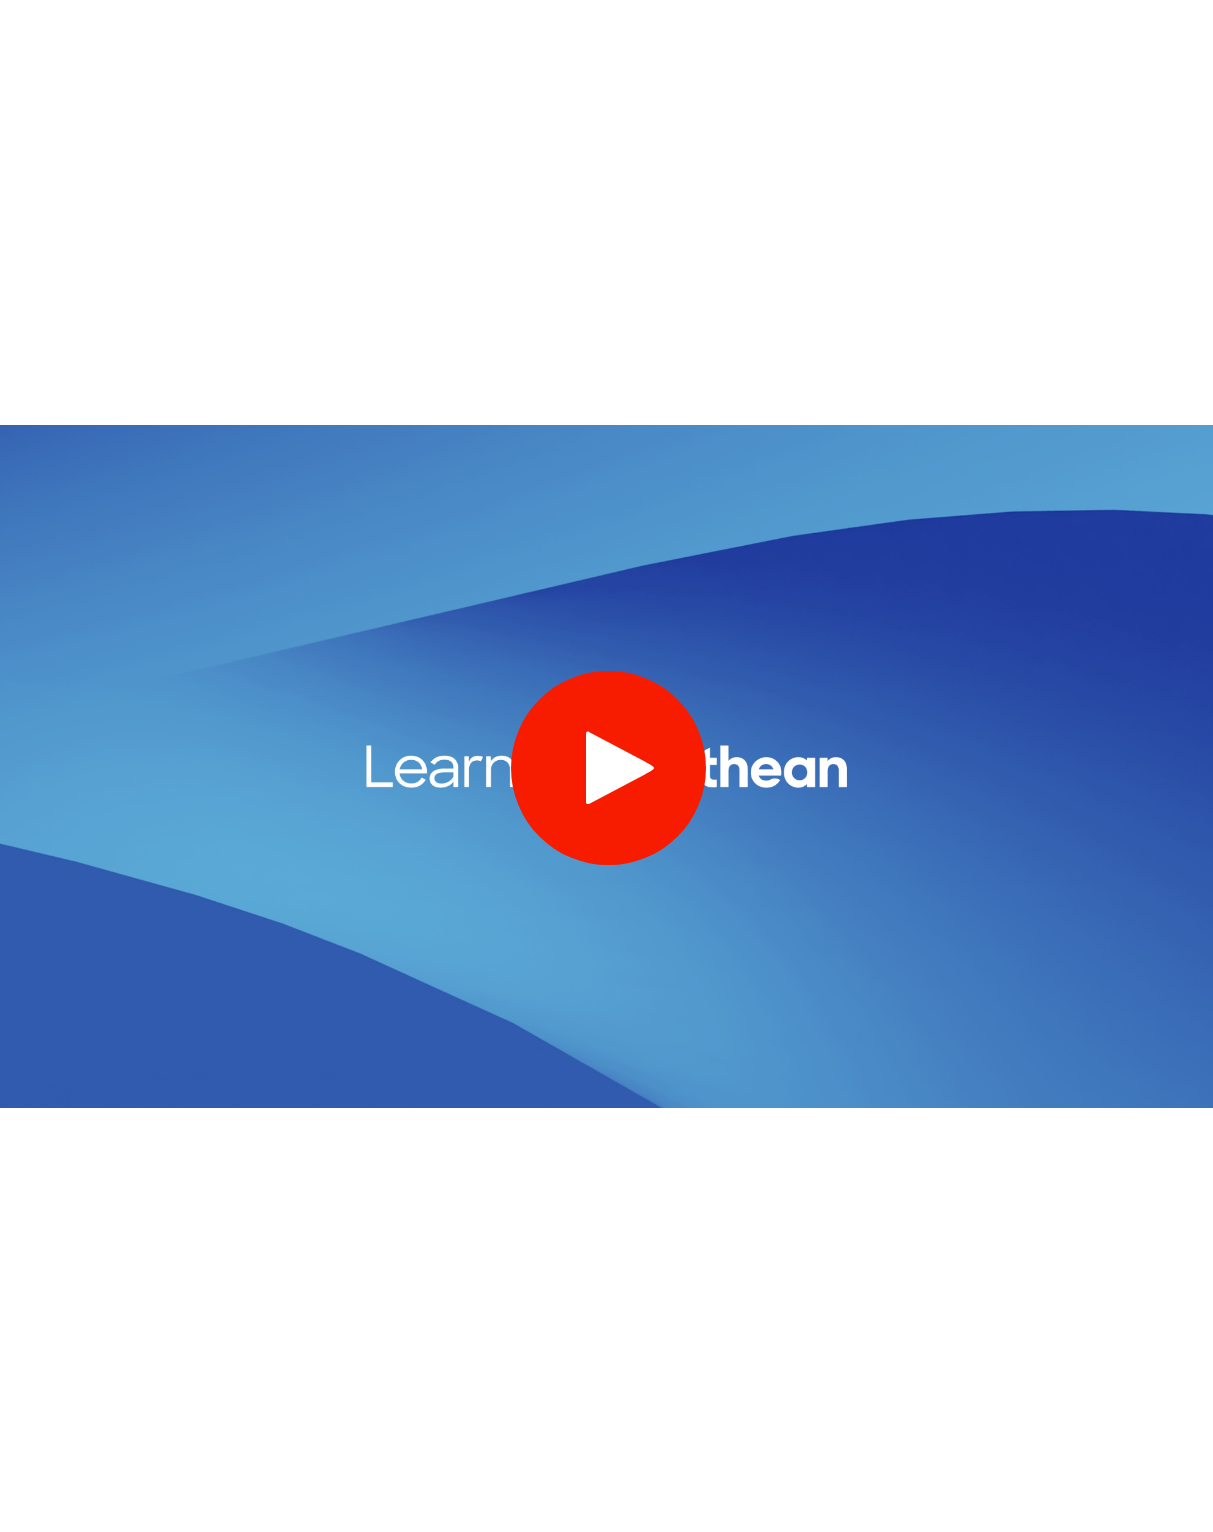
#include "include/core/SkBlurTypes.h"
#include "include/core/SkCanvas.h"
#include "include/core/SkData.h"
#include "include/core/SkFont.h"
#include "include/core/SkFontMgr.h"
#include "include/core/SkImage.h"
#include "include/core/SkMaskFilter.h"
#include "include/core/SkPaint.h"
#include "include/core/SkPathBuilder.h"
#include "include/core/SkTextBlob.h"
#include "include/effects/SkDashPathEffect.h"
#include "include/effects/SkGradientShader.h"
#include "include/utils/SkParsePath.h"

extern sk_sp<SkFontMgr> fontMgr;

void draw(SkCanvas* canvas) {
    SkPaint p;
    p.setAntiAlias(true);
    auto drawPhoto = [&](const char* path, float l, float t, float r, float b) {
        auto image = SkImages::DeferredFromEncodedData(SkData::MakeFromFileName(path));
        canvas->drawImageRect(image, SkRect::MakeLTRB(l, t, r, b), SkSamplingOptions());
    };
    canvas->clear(0xFFFFFFFF);
    drawPhoto("media/1.png", 0, 425, 1213, 1108);
    p.setColor(0xFFF71C00);
    canvas->drawRoundRect(SkRect::MakeLTRB(511, 671, 706, 865), 97, 97, p);
    p.setColor(0xFFFFFFFF);
    canvas->drawPath(SkPathBuilder().moveTo(589, 732).lineTo(642, 760).cubicTo(658, 769, 658, 767, 642, 776).lineTo(589, 804).lineTo(587, 804).lineTo(586, 803).lineTo(586, 733).cubicTo(586, 732, 588, 731, 589, 732).close().detach(), p);
}
